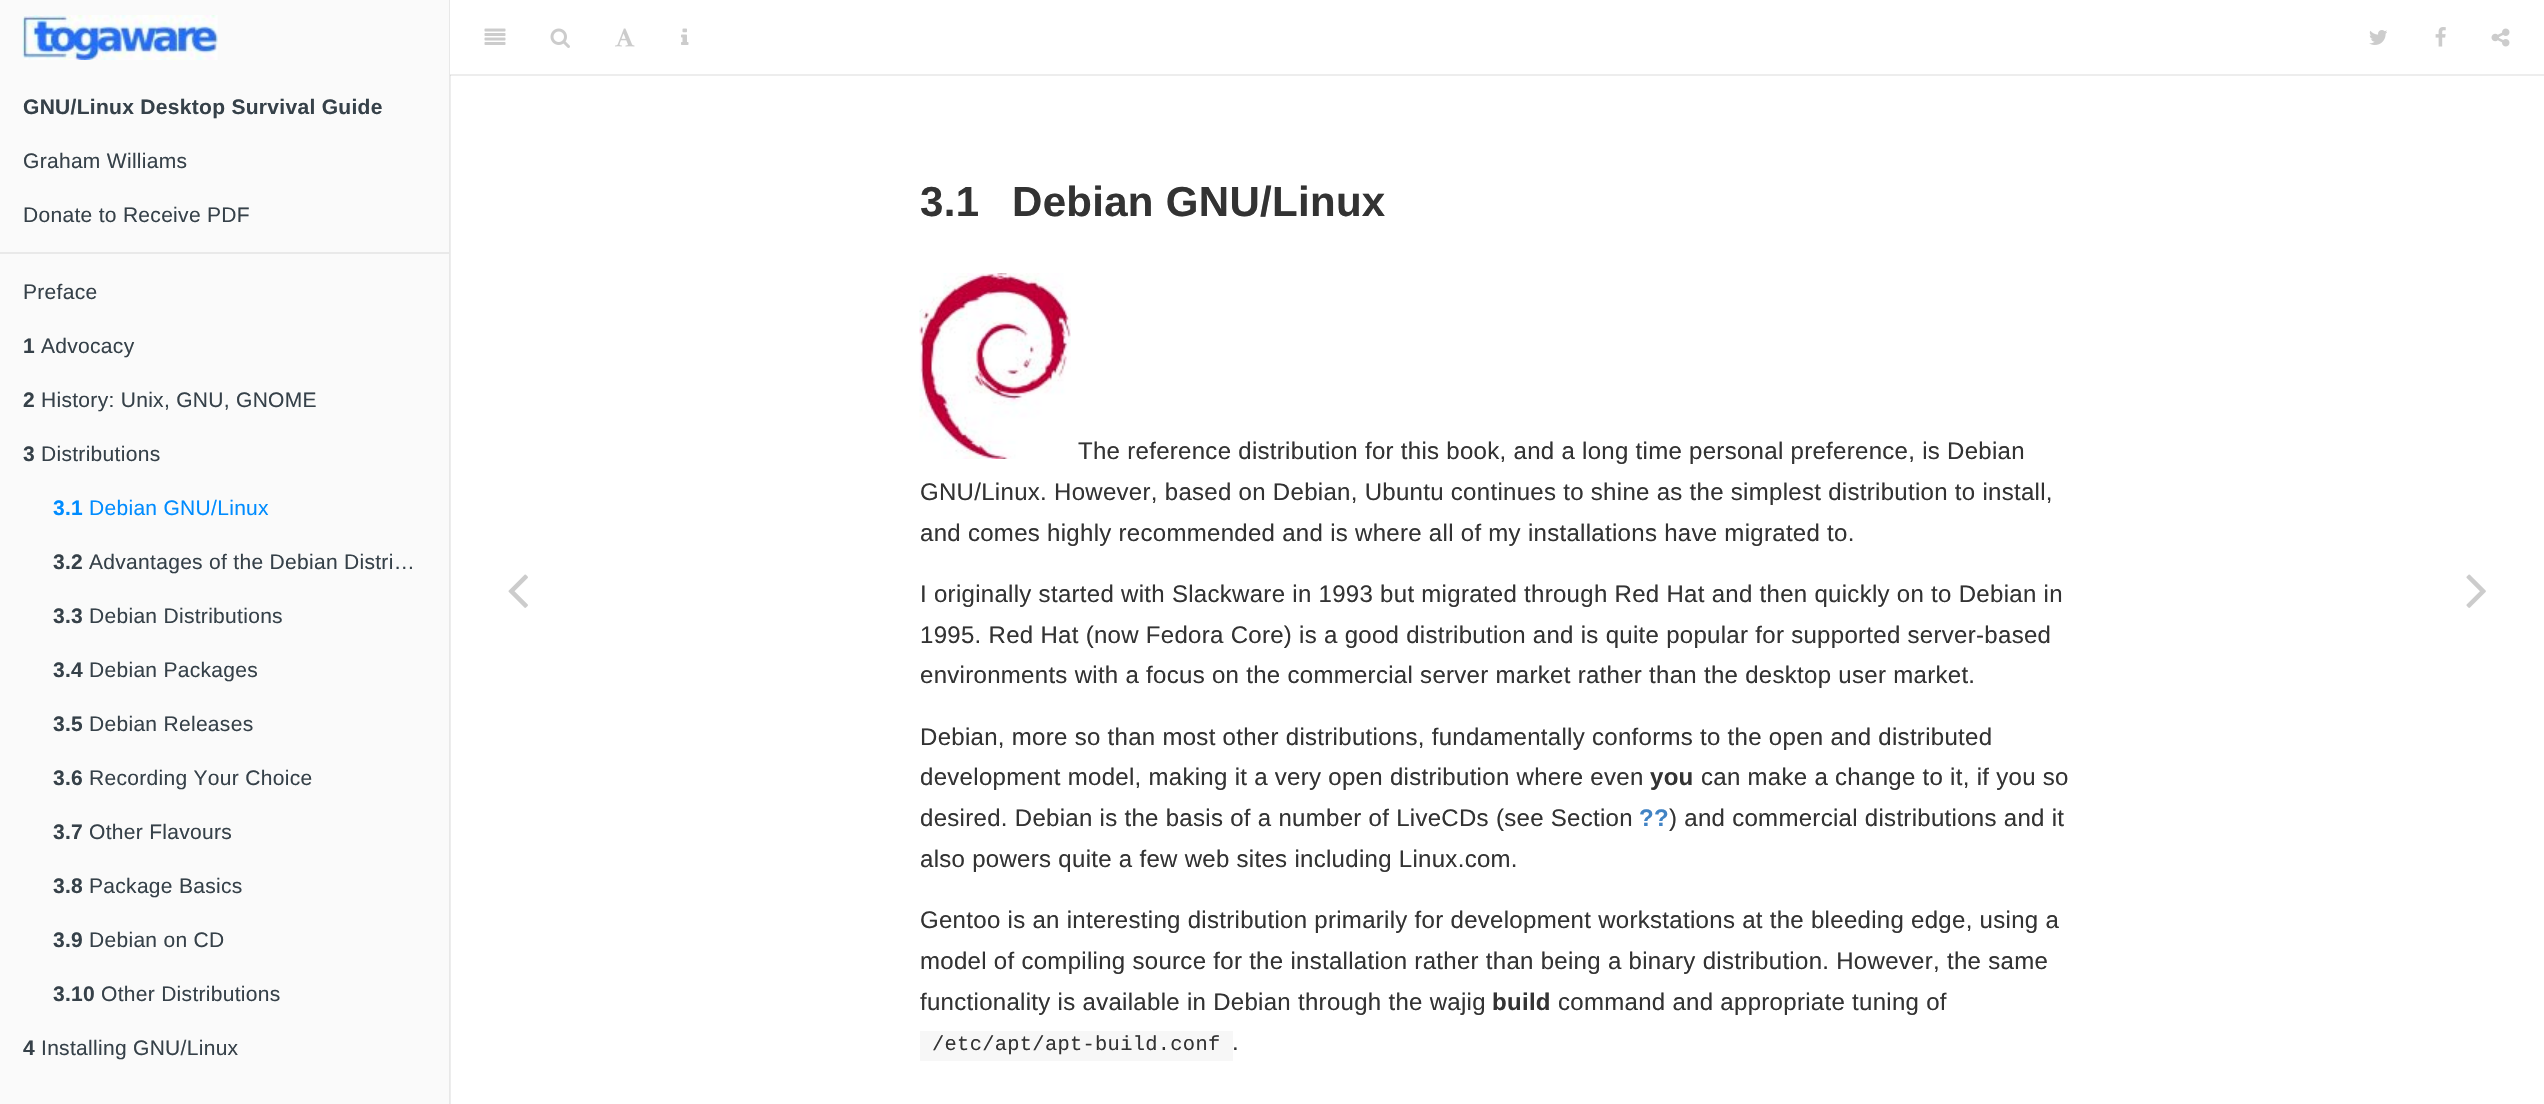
#include "include/core/SkBlurTypes.h"
#include "include/core/SkCanvas.h"
#include "include/core/SkData.h"
#include "include/core/SkFont.h"
#include "include/core/SkFontMgr.h"
#include "include/core/SkImage.h"
#include "include/core/SkMaskFilter.h"
#include "include/core/SkPaint.h"
#include "include/core/SkPathBuilder.h"
#include "include/core/SkTextBlob.h"
#include "include/effects/SkDashPathEffect.h"
#include "include/effects/SkGradientShader.h"
#include "include/utils/SkParsePath.h"

extern sk_sp<SkFontMgr> fontMgr;

void draw(SkCanvas* canvas) {
    SkPaint p;
    p.setAntiAlias(true);
    auto font = [&](const char* family, int weight, float size, bool italic = false) {
        SkFontStyle style(weight, SkFontStyle::kNormal_Width,
            italic ? SkFontStyle::kItalic_Slant : SkFontStyle::kUpright_Slant);
        SkFont result(fontMgr->matchFamilyStyle(family, style), size);
        result.setSubpixel(true);
        return result;
    };
    auto drawTracked = [&](const char* s, float x, float y, const SkFont& font, const SkPaint& ink, float letter, float word) {
        std::vector<SkGlyphID> glyphs(font.countText(s, strlen(s), SkTextEncoding::kUTF8));
        std::vector<float> xs(glyphs.size());
        font.textToGlyphs(s, strlen(s), SkTextEncoding::kUTF8, glyphs);
        font.getXPos(glyphs, xs, x);
        float extra = 0;
        for (size_t i = 0; i < glyphs.size(); i++) {
            xs[i] += extra;
            extra += letter + word * (glyphs[i] == font.unicharToGlyph(' '));
        }
        canvas->drawTextBlob(SkTextBlob::MakeFromPosHGlyphs(glyphs, xs, y, font), 0, 0, ink);
    };
    auto drawPhoto = [&](const char* path, float l, float t, float r, float b) {
        auto image = SkImages::DeferredFromEncodedData(SkData::MakeFromFileName(path));
        canvas->drawImageRect(image, SkRect::MakeLTRB(l, t, r, b), SkSamplingOptions());
    };
    canvas->clear(0xFFFFFFFF);
    {
        const struct { float l, t, r, b; SkColor color; } items[] = {
            {450, 75, 2544, 76, 0xFFEDEDED},
            {450, 76, 451, 1104, 0xFFEDEDED},
            {450, 74, 451, 76, 0xFFDCDCDC},
            {0, 0, 449, 1104, 0xFFFAFAFA},
            {449, 0, 450, 1104, 0xFFE8E8E8},
        };
        for (auto [l, t, r, b, color] : items) {
            p.setColor(color);
            canvas->drawRect(SkRect::MakeLTRB(l, t, r, b), p);
        }
    }
    drawPhoto("media/1.png", 22, 15, 218, 60);
    auto font1 = font("Liberation Sans", 700, 21);
    p.setColor(0xFF364149);
    drawTracked("GNU/Linux Desktop Survival Guide", 23, 114, font1, p, 0.3f, 0);
    auto font2 = font("Liberation Sans", 400, 21);
    drawTracked("Graham Williams", 23, 168, font2, p, 0.3f, 0);
    drawTracked("Donate to Receive PDF", 23, 222, font2, p, 0.3f, 0);
    p.setColor(0xFFE9E9E9);
    canvas->drawRect(SkRect::MakeLTRB(0, 252, 449, 254), p);
    p.setColor(0xFF364149);
    drawTracked("Preface", 23, 299, font2, p, 0.3f, 0);
    drawTracked("1", 23, 353, font1, p, 0.3f, 0);
    drawTracked("Advocacy", 41, 353, font2, p, 0.3f, 0);
    drawTracked("2", 23, 407, font1, p, 0.3f, 0);
    drawTracked("History: Unix, GNU, GNOME", 41, 407, font2, p, 0.3f, 0);
    drawTracked("3", 23, 461, font1, p, 0.3f, 0);
    drawTracked("Distributions", 41, 461, font2, p, 0.3f, 0);
    p.setColor(0xFF008CFF);
    drawTracked("3.1", 53, 515, font1, p, 0.3f, 0);
    drawTracked("Debian GNU/Linux", 89, 515, font2, p, 0.3f, 0);
    p.setColor(0xFF364149);
    drawTracked("3.2", 53, 569, font1, p, 0.3f, 0);
    drawTracked("Advantages of the Debian Distri…", 89, 569, font2, p, 0.3f, 0);
    drawTracked("3.3", 53, 623, font1, p, 0.3f, 0);
    drawTracked("Debian Distributions", 89, 623, font2, p, 0.3f, 0);
    drawTracked("3.4", 53, 677, font1, p, 0.3f, 0);
    drawTracked("Debian Packages", 89, 677, font2, p, 0.3f, 0);
    drawTracked("3.5", 53, 731, font1, p, 0.3f, 0);
    drawTracked("Debian Releases", 89, 731, font2, p, 0.3f, 0);
    drawTracked("3.6", 53, 785, font1, p, 0.3f, 0);
    drawTracked("Recording Your Choice", 89, 785, font2, p, 0.3f, 0);
    drawTracked("3.7", 53, 839, font1, p, 0.3f, 0);
    drawTracked("Other Flavours", 89, 839, font2, p, 0.3f, 0);
    drawTracked("3.8", 53, 893, font1, p, 0.3f, 0);
    drawTracked("Package Basics", 89, 893, font2, p, 0.3f, 0);
    drawTracked("3.9", 53, 947, font1, p, 0.3f, 0);
    drawTracked("Debian on CD", 89, 947, font2, p, 0.3f, 0);
    drawTracked("3.10", 53, 1001, font1, p, 0.3f, 0);
    drawTracked("Other Distributions", 101, 1001, font2, p, 0.3f, 0);
    drawTracked("4", 23, 1055, font1, p, 0.3f, 0);
    drawTracked("Installing GNU/Linux", 41, 1055, font2, p, 0.3f, 0);
    drawPhoto("media/2.png", 508, 574, 528, 608);
    p.setColor(0xFFEDEDED);
    canvas->drawRect(SkRect::MakeLTRB(450, 74, 2544, 75), p);
    drawPhoto("media/3.png", 484, 28, 506, 45);
    drawPhoto("media/4.png", 550, 28, 570, 48);
    drawPhoto("media/5.png", 615, 28, 635, 47);
    drawPhoto("media/6.png", 681, 28, 689, 45);
    drawPhoto("media/7.png", 2369, 30, 2387, 45);
    drawPhoto("media/8.png", 2435, 27, 2446, 47);
    drawPhoto("media/9.png", 2491, 28, 2510, 47);
    auto font3 = font("Liberation Sans", 700, 42);
    p.setColor(0xFF333333);
    drawTracked("3.1", 920, 216, font3, p, 0.3f, 0);
    drawTracked("Debian GNU/Linux", 1012, 216, font3, p, 0.3f, 0);
    drawPhoto("media/10.png", 919, 273, 1071, 459);
    auto font4 = font("Liberation Sans", 400, 24);
    {
        const struct { const char* s; float x, y; } items[] = {
            {"The reference distribution for this book, and a long time personal preference, is Debian", 1078, 459},
            {"GNU/Linux. However, based on Debian, Ubuntu continues to shine as the simplest distribution to install,", 920, 500},
            {"and comes highly recommended and is where all of my installations have migrated to.", 920, 541},
            {"I originally started with Slackware in 1993 but migrated through Red Hat and then quickly on to Debian in", 920, 602},
            {"1995. Red Hat (now Fedora Core) is a good distribution and is quite popular for supported server-based", 920, 643},
            {"environments with a focus on the commercial server market rather than the desktop user market.", 920, 683},
            {"Debian, more so than most other distributions, fundamentally conforms to the open and distributed", 920, 745},
            {"development model, making it a very open distribution where even", 920, 785},
        };
        for (auto [s, x, y] : items) {
            drawTracked(s, x, y, font4, p, 0.3f, 0);
        }
    }
    auto font5 = font("Liberation Sans", 700, 24);
    drawTracked("you", 1650, 785, font5, p, 0.3f, 0);
    drawTracked("can make a change to it, if you so", 1701, 785, font4, p, 0.3f, 0);
    drawTracked("desired. Debian is the basis of a number of LiveCDs (see Section", 920, 826, font4, p, 0.3f, 0);
    p.setColor(0xFF4183C4);
    drawTracked("?\077", 1639, 826, font5, p, 0.3f, 0);
    p.setColor(0xFF333333);
    {
        const struct { const char* s; float x, y; } items[] = {
            {") and commercial distributions and it", 1669, 826},
            {"also powers quite a few web sites including Linux.com.", 920, 867},
            {"Gentoo is an interesting distribution primarily for development workstations at the bleeding edge, using a", 920, 928},
            {"model of compiling source for the installation rather than being a binary distribution. However, the same", 920, 969},
            {"functionality is available in Debian through the wajig", 920, 1010},
        };
        for (auto [s, x, y] : items) {
            drawTracked(s, x, y, font4, p, 0.3f, 0);
        }
    }
    drawTracked("build", 1492, 1010, font5, p, 0.3f, 0);
    drawTracked("command and appropriate tuning of", 1558, 1010, font4, p, 0.3f, 0);
    p.setColor(0xFFF7F7F7);
    canvas->drawRect(SkRect::MakeLTRB(920, 1031, 1233, 1061), p);
    auto font6 = font("Liberation Mono", 400, 20.4f);
    p.setColor(0xFF333333);
    drawTracked("/etc/apt/apt-build.conf", 932, 1050, font6, p, 0.3f, 0);
    drawTracked(".", 1232, 1050, font4, p, 0.3f, 0);
    drawPhoto("media/11.png", 2466, 574, 2486, 608);
}
